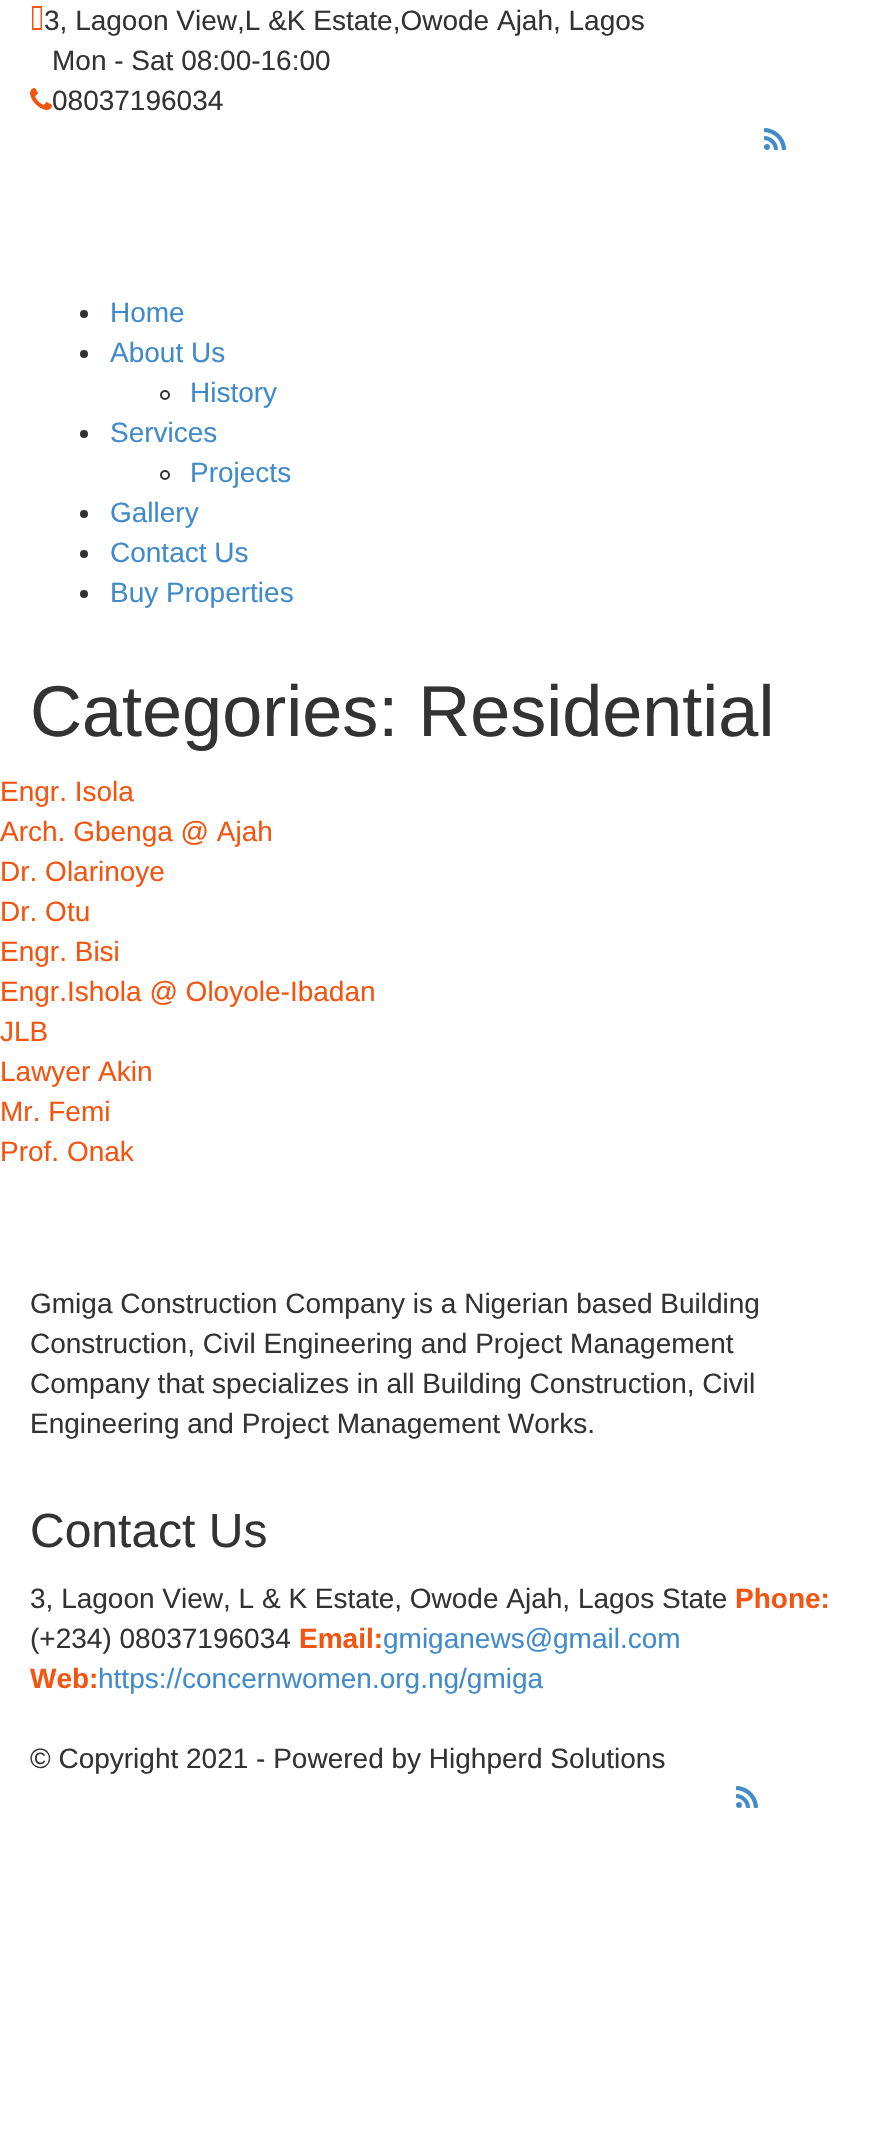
#include "include/core/SkBlurTypes.h"
#include "include/core/SkCanvas.h"
#include "include/core/SkData.h"
#include "include/core/SkFont.h"
#include "include/core/SkFontMgr.h"
#include "include/core/SkImage.h"
#include "include/core/SkMaskFilter.h"
#include "include/core/SkPaint.h"
#include "include/core/SkPathBuilder.h"
#include "include/core/SkTextBlob.h"
#include "include/effects/SkDashPathEffect.h"
#include "include/effects/SkGradientShader.h"
#include "include/utils/SkParsePath.h"

extern sk_sp<SkFontMgr> fontMgr;

void draw(SkCanvas* canvas) {
    SkPaint p;
    p.setAntiAlias(true);
    auto font = [&](const char* family, int weight, float size, bool italic = false) {
        SkFontStyle style(weight, SkFontStyle::kNormal_Width,
            italic ? SkFontStyle::kItalic_Slant : SkFontStyle::kUpright_Slant);
        SkFont result(fontMgr->matchFamilyStyle(family, style), size);
        result.setSubpixel(true);
        return result;
    };
    auto drawPhoto = [&](const char* path, float l, float t, float r, float b) {
        auto image = SkImages::DeferredFromEncodedData(SkData::MakeFromFileName(path));
        canvas->drawImageRect(image, SkRect::MakeLTRB(l, t, r, b), SkSamplingOptions());
    };
    canvas->clear(0xFFFFFFFF);
    p.setColor(0xFFF35410);
    canvas->drawPath(SkPathBuilder().moveTo(33.5f, 28).lineTo(33.5f, 8).lineTo(40.5f, 8).lineTo(40.5f, 28).close().moveTo(32, 30).lineTo(42, 30).lineTo(42, 6).lineTo(32, 6).close().detach(), p);
    auto font1 = font("Liberation Sans", 400, 28);
    p.setColor(0xFF333333);
    canvas->drawString("3, Lagoon View,L &K Estate,Owode Ajah, Lagos", 44, 30, font1, p);
    canvas->drawString("Mon - Sat 08:00-16:00", 52, 70, font1, p);
    drawPhoto("media/1.png", 30, 88, 52, 110);
    canvas->drawString("08037196034", 52, 110, font1, p);
    drawPhoto("media/2.png", 764, 128, 786, 150);
    canvas->drawCircle(84, 314, 4, p);
    p.setColor(0xFF428BCA);
    canvas->drawString("Home", 110, 322, font1, p);
    p.setColor(0xFF333333);
    canvas->drawCircle(84, 354, 4, p);
    p.setColor(0xFF428BCA);
    canvas->drawString("About Us", 110, 362, font1, p);
    p.setStyle(SkPaint::kStroke_Style);
    p.setStrokeWidth(2);
    p.setColor(0xFF333333);
    canvas->drawCircle(165, 395, 4, p);
    p.setStyle(SkPaint::kFill_Style);
    p.setColor(0xFF428BCA);
    canvas->drawString("History", 190, 402, font1, p);
    p.setColor(0xFF333333);
    canvas->drawCircle(84, 434, 4, p);
    p.setColor(0xFF428BCA);
    canvas->drawString("Services", 110, 442, font1, p);
    p.setStyle(SkPaint::kStroke_Style);
    p.setColor(0xFF333333);
    canvas->drawCircle(165, 475, 4, p);
    p.setStyle(SkPaint::kFill_Style);
    p.setColor(0xFF428BCA);
    canvas->drawString("Projects", 190, 482, font1, p);
    p.setColor(0xFF333333);
    canvas->drawCircle(84, 514, 4, p);
    p.setColor(0xFF428BCA);
    canvas->drawString("Gallery", 110, 522, font1, p);
    p.setColor(0xFF333333);
    canvas->drawCircle(84, 554, 4, p);
    p.setColor(0xFF428BCA);
    canvas->drawString("Contact Us", 110, 562, font1, p);
    p.setColor(0xFF333333);
    canvas->drawCircle(84, 594, 4, p);
    p.setColor(0xFF428BCA);
    canvas->drawString("Buy Properties", 110, 602, font1, p);
    auto font2 = font("Liberation Sans", 400, 72);
    p.setColor(0xFF333333);
    canvas->drawString("Categories: Residential", 30, 736, font2, p);
    p.setColor(0xFFF35410);
    {
        const struct { const char* s; float x, y; } items[] = {
            {"Engr. Isola", 0, 801},
            {"Arch. Gbenga @ Ajah", 0, 841},
            {"Dr. Olarinoye", 0, 881},
            {"Dr. Otu", 0, 921},
            {"Engr. Bisi", 0, 961},
            {"Engr.Ishola @ Oloyole-Ibadan", 0, 1001},
            {"JLB", 0, 1041},
            {"Lawyer Akin", 0, 1081},
            {"Mr. Femi", 0, 1121},
            {"Prof. Onak", 0, 1161},
        };
        for (auto [s, x, y] : items) {
            canvas->drawString(s, x, y, font1, p);
        }
    }
    p.setColor(0xFF333333);
    {
        const struct { const char* s; float x, y; } items[] = {
            {"Gmiga Construction Company is a Nigerian based Building", 30, 1313},
            {"Construction, Civil Engineering and Project Management", 30, 1353},
            {"Company that specializes in all Building Construction, Civil", 30, 1393},
            {"Engineering and Project Management Works.", 30, 1433},
        };
        for (auto [s, x, y] : items) {
            canvas->drawString(s, x, y, font1, p);
        }
    }
    auto font3 = font("Liberation Sans", 400, 48);
    canvas->drawString("Contact Us", 30, 1547, font3, p);
    canvas->drawString("3, Lagoon View, L & K Estate, Owode Ajah, Lagos State", 30, 1608, font1, p);
    auto font4 = font("Liberation Sans", 700, 28);
    p.setColor(0xFFF35410);
    canvas->drawString("Phone:", 735, 1608, font4, p);
    p.setColor(0xFF333333);
    canvas->drawString("(+234) 08037196034", 30, 1648, font1, p);
    p.setColor(0xFFF35410);
    canvas->drawString("Email:", 299, 1648, font4, p);
    p.setColor(0xFF428BCA);
    canvas->drawString("gmiganews@gmail.com", 383, 1648, font1, p);
    p.setColor(0xFFF35410);
    canvas->drawString("Web:", 30, 1688, font4, p);
    p.setColor(0xFF428BCA);
    canvas->drawString("https://concernwomen.org.ng/gmiga", 98, 1688, font1, p);
    p.setColor(0xFF333333);
    canvas->drawString("© Copyright 2021 - Powered by Highperd Solutions", 30, 1768, font1, p);
    drawPhoto("media/2.png", 736, 1786, 758, 1808);
}
